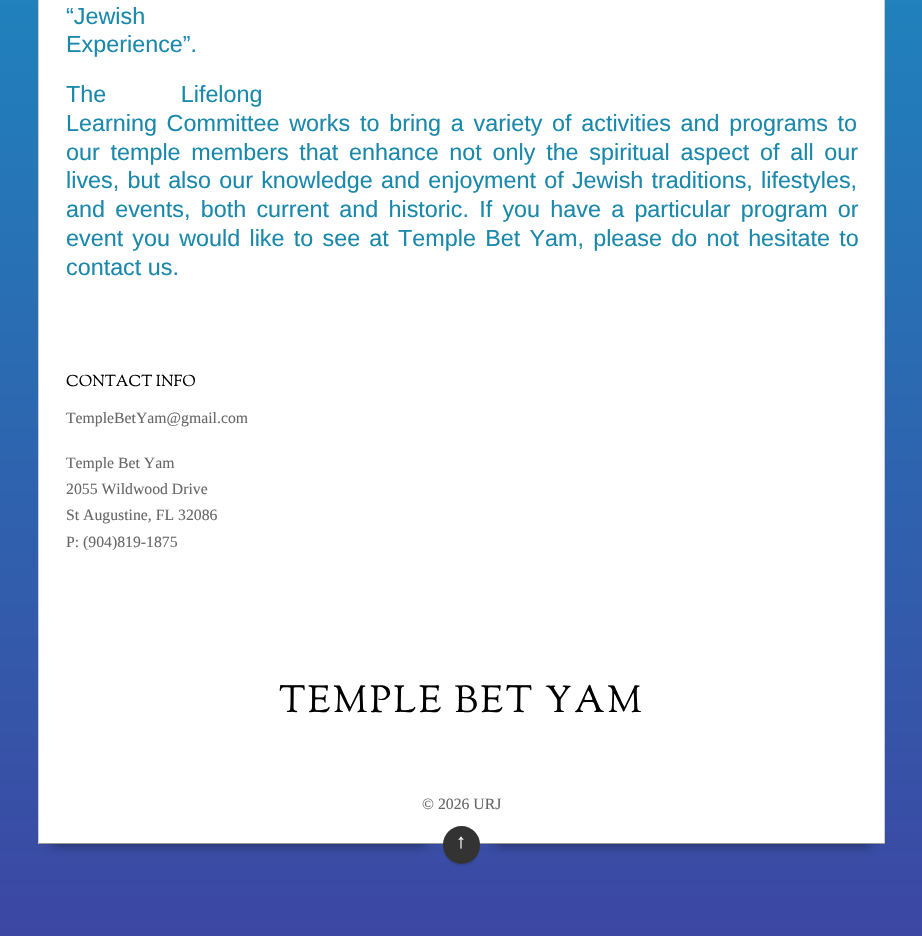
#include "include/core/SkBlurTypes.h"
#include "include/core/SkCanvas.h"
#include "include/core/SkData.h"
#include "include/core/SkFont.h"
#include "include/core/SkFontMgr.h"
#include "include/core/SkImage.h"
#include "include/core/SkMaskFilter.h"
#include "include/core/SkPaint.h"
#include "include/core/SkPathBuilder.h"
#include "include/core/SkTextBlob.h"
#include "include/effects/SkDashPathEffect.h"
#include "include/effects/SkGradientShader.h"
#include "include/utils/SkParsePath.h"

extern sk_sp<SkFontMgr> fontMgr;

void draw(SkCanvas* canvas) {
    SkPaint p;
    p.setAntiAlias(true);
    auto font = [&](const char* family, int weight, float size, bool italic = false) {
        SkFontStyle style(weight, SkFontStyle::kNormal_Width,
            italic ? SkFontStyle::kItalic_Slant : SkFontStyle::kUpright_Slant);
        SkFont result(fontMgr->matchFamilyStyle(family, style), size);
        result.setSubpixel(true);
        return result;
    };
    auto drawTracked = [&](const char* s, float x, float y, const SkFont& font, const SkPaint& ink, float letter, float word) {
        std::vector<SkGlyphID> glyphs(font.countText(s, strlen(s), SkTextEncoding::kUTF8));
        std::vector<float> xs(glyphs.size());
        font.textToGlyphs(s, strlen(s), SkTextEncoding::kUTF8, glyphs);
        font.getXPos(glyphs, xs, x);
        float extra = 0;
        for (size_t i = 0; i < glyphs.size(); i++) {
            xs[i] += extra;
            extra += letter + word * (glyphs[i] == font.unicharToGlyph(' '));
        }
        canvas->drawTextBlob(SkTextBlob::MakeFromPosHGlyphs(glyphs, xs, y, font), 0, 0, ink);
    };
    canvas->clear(0xFFFFFFFF);
    {
        const SkColor colors[] = {0xFF02BFD5, 0xFF3C47A3};
        const float stops[] = {0, 1};
        const SkPoint ends[] = {{461, -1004}, {461, 936}};
        p.setShader(SkGradientShader::MakeLinear(ends, colors, stops, 2, SkTileMode::kClamp));
        p.setAlpha(255);
    }
    canvas->drawRect(SkRect::MakeLTRB(0, 0, 922, 936), p);
    p.setShader(nullptr);
    p.setColor(0x99000000);
    p.setMaskFilter(SkMaskFilter::MakeBlur(kNormal_SkBlurStyle, 6.5f));
    canvas->drawRect(SkRect::MakeLTRB(51, 830, 426, 843), p);
    p.setMaskFilter(nullptr);
    p.setMaskFilter(SkMaskFilter::MakeBlur(kNormal_SkBlurStyle, 6.5f));
    canvas->drawRect(SkRect::MakeLTRB(496, 830, 871, 843), p);
    p.setMaskFilter(nullptr);
    {
        const struct { float l, t, r, b; SkColor color; } items[] = {
            {39, 0, 884, 843, 0xFFFFFFFF},
            {884, 0, 885, 844, 0xFFCCCCCC},
            {38, 843, 885, 844, 0xFF999999},
            {38, 0, 39, 844, 0xFFCCCCCC},
        };
        for (auto [l, t, r, b, color] : items) {
            p.setColor(color);
            canvas->drawRect(SkRect::MakeLTRB(l, t, r, b), p);
        }
    }
    auto font1 = font("Liberation Sans", 400, 23.35f);
    p.setColor(0xFF1A88AB);
    canvas->drawString("“Jewish", 66, 24, font1, p);
    canvas->drawString("Experience”.", 66, 52, font1, p);
    drawTracked("The Lifelong", 66, 102, font1, p, 0, 68);
    drawTracked("Learning Committee works to bring a variety of activities and programs to", 66, 131, font1, p, 0, 3.25f);
    drawTracked("our temple members that enhance not only the spiritual aspect of all our", 66, 160, font1, p, 0, 4.25f);
    drawTracked("lives, but also our knowledge and enjoyment of Jewish traditions, lifestyles,", 66, 188, font1, p, 0, 1.75f);
    drawTracked("and events, both current and historic. If you have a particular program or", 66, 217, font1, p, 0, 3.75f);
    drawTracked("event you would like to see at Temple Bet Yam, please do not hesitate to", 66, 246, font1, p, 0, 2.75f);
    canvas->drawString("contact us.", 66, 275, font1, p);
    auto font2 = font("OFL Sorts Mill Goudy TT", 500, 15.75f);
    p.setColor(0xFF000000);
    canvas->drawString("CONTACT INFO", 66, 386, font2, p);
    auto font3 = font("Liberation Serif", 400, 15.75f);
    p.setColor(0xFF666666);
    {
        const struct { const char* s; float x, y; } items[] = {
            {"TempleBetYam@gmail.com", 66, 423},
            {"Temple Bet Yam", 66, 468},
            {"2055 Wildwood Drive", 66, 494},
            {"St Augustine, FL 32086", 66, 520},
            {"P: (904)819-1875", 66, 547},
        };
        for (auto [s, x, y] : items) {
            canvas->drawString(s, x, y, font3, p);
        }
    }
    auto font4 = font("OFL Sorts Mill Goudy TT", 500, 37.5f);
    p.setColor(0xFF000000);
    drawTracked("TEMPLE BET YAM", 279, 712, font4, p, 2.5f, 0);
    p.setColor(0xFF666666);
    canvas->drawString("© 2026 URJ", 422, 809, font3, p);
    p.setColor(0xFF344494);
    canvas->drawPath(SkPathBuilder().moveTo(443, 850).cubicTo(445.5f, 866.5f, 467.5f, 872, 477, 858).cubicTo(479, 854.5f, 480, 850.5f, 480, 846.5f).cubicTo(478.5f, 867, 448.5f, 870, 443, 850).close().detach(), p);
    p.setColor(0xFF333333);
    canvas->drawRoundRect(SkRect::MakeLTRB(443, 826, 480, 864), 18.5f, 18.5f, p);
    auto font5 = font("Liberation Serif", 400, 20);
    p.setColor(0xFFFFFFFF);
    canvas->drawString("↑", 456, 848, font5, p);
}
